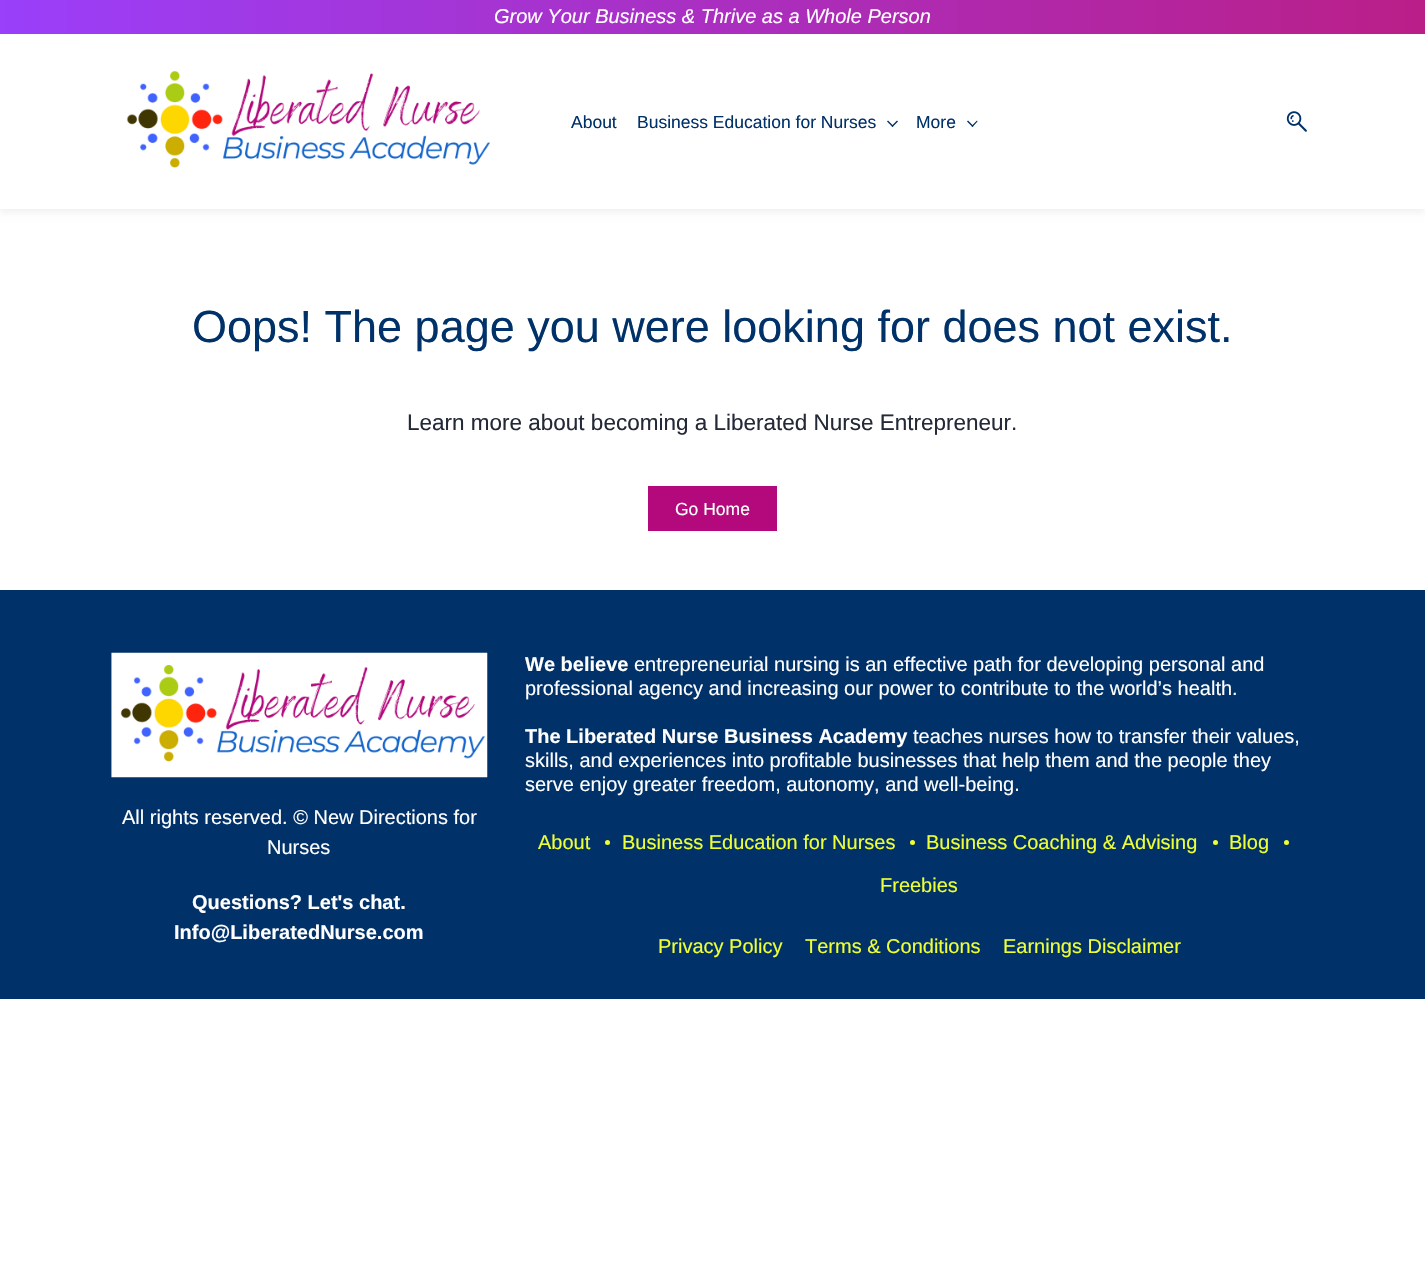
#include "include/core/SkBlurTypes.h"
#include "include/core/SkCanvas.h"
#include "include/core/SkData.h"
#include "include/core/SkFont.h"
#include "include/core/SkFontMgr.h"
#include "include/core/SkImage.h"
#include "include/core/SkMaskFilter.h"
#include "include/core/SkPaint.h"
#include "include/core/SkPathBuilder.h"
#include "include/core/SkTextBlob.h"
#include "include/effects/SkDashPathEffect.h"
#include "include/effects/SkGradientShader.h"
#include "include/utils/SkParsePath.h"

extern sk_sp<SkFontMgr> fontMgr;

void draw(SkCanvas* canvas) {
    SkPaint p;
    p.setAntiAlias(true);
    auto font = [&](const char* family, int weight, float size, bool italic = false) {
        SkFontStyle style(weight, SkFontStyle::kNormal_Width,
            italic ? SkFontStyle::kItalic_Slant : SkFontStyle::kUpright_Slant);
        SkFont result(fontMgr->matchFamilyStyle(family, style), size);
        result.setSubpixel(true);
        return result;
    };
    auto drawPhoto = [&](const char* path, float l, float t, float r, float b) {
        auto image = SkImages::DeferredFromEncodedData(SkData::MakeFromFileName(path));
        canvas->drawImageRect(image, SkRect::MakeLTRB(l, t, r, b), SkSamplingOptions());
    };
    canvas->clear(0xFFFFFFFF);
    p.setColor(0x0D000000);
    p.setMaskFilter(SkMaskFilter::MakeBlur(kNormal_SkBlurStyle, 3));
    canvas->drawRect(SkRect::MakeLTRB(0, 4, 1425, 213), p);
    p.setMaskFilter(nullptr);
    {
        const SkColor colors[] = {0xFF9A3FFA, 0xFFBA1F88};
        const float stops[] = {0, 1};
        const SkPoint ends[] = {{0, 17}, {1425, 17}};
        p.setShader(SkGradientShader::MakeLinear(ends, colors, stops, 2, SkTileMode::kClamp));
        p.setAlpha(255);
    }
    canvas->drawRect(SkRect::MakeLTRB(0, 0, 1425, 34), p);
    auto font1 = font("Liberation Sans", 400, 20, true);
    p.setShader(nullptr);
    p.setColor(0xFFFFFFFF);
    canvas->drawString("Grow Your Business & Thrive as a Whole Person", 494, 23, font1, p);
    canvas->drawRect(SkRect::MakeLTRB(0, 34, 1425, 209), p);
    drawPhoto("media/1.png", 126, 71, 490, 168);
    auto font2 = font("Liberation Sans", 400, 17.5f);
    p.setColor(0xFF003169);
    canvas->drawString("About", 571, 128, font2, p);
    canvas->drawString("Business Education for Nurses", 637, 128, font2, p);
    canvas->drawPath(SkPathBuilder().moveTo(898, 121.5f).lineTo(892.5f, 127).lineTo(891.5f, 126).lineTo(897, 120.5f).close().detach(), p);
    canvas->drawPath(SkPathBuilder().moveTo(893.5f, 126).lineTo(892.5f, 127).lineTo(887, 121.5f).lineTo(888, 120.5f).close().detach(), p);
    canvas->drawString("More", 916, 128, font2, p);
    canvas->drawPath(SkPathBuilder().moveTo(977.5f, 121.5f).lineTo(972.5f, 127).lineTo(971.5f, 126).lineTo(977, 120.5f).close().detach(), p);
    canvas->drawPath(SkPathBuilder().moveTo(973.5f, 126).lineTo(972.5f, 127).lineTo(967, 121.5f).lineTo(968, 120.5f).close().detach(), p);
    drawPhoto("media/2.png", 1286, 111, 1307, 132);
    auto font3 = font("Liberation Sans", 400, 45);
    canvas->drawString("Oops! The page you were looking for does not exist.", 192, 342, font3, p);
    auto font4 = font("Liberation Sans", 400, 22.5f);
    p.setColor(0xFF232937);
    canvas->drawString("Learn more about becoming a Liberated Nurse Entrepreneur.", 407, 430, font4, p);
    p.setColor(0xFFB3097C);
    canvas->drawRect(SkRect::MakeLTRB(648, 486, 777, 531), p);
    p.setColor(0xFFFFFFFF);
    canvas->drawString("Go Home", 675, 515, font2, p);
    p.setColor(0xFF003169);
    canvas->drawRect(SkRect::MakeLTRB(0, 590, 1425, 999), p);
    drawPhoto("media/3.png", 111, 652, 488, 778);
    auto font5 = font("Liberation Sans", 400, 20);
    p.setColor(0xFFFFFFFF);
    canvas->drawString("All rights reserved. © New Directions for", 122, 824, font5, p);
    canvas->drawString("Nurses", 267, 854, font5, p);
    auto font6 = font("Liberation Sans", 700, 20);
    {
        const struct { const char* s; float x, y; } items[] = {
            {"Questions? Let's chat.", 192, 909},
            {"Info@LiberatedNurse.com", 174, 939},
            {"We believe", 525, 671},
        };
        for (auto [s, x, y] : items) {
            canvas->drawString(s, x, y, font6, p);
        }
    }
    canvas->drawString("entrepreneurial nursing is an effective path for developing personal and", 634, 671, font5, p);
    canvas->drawString("professional agency and increasing our power to contribute to the world’s health.", 525, 695, font5, p);
    canvas->drawString("The Liberated Nurse Business Academy", 525, 743, font6, p);
    {
        const struct { const char* s; float x, y; } items[] = {
            {"teaches nurses how to transfer their values,", 913, 743},
            {"skills, and experiences into profitable businesses that help them and the people they", 525, 767},
            {"serve enjoy greater freedom, autonomy, and well-being.", 525, 791},
        };
        for (auto [s, x, y] : items) {
            canvas->drawString(s, x, y, font5, p);
        }
    }
    p.setColor(0xFFEFFF34);
    canvas->drawString("About", 538, 849, font5, p);
    canvas->drawCircle(607.5f, 842.5f, 2.5f, p);
    canvas->drawString("Business Education for Nurses", 622, 849, font5, p);
    canvas->drawCircle(912.5f, 842.5f, 2.5f, p);
    canvas->drawString("Business Coaching & Advising", 926, 849, font5, p);
    canvas->drawCircle(1215.5f, 842.5f, 2.5f, p);
    canvas->drawString("Blog", 1229, 849, font5, p);
    canvas->drawCircle(1286.5f, 842.5f, 2.5f, p);
    {
        const struct { const char* s; float x, y; } items[] = {
            {"Freebies", 880, 892},
            {"Privacy Policy", 658, 953},
            {"Terms & Conditions", 805, 953},
            {"Earnings Disclaimer", 1003, 953},
        };
        for (auto [s, x, y] : items) {
            canvas->drawString(s, x, y, font5, p);
        }
    }
}
